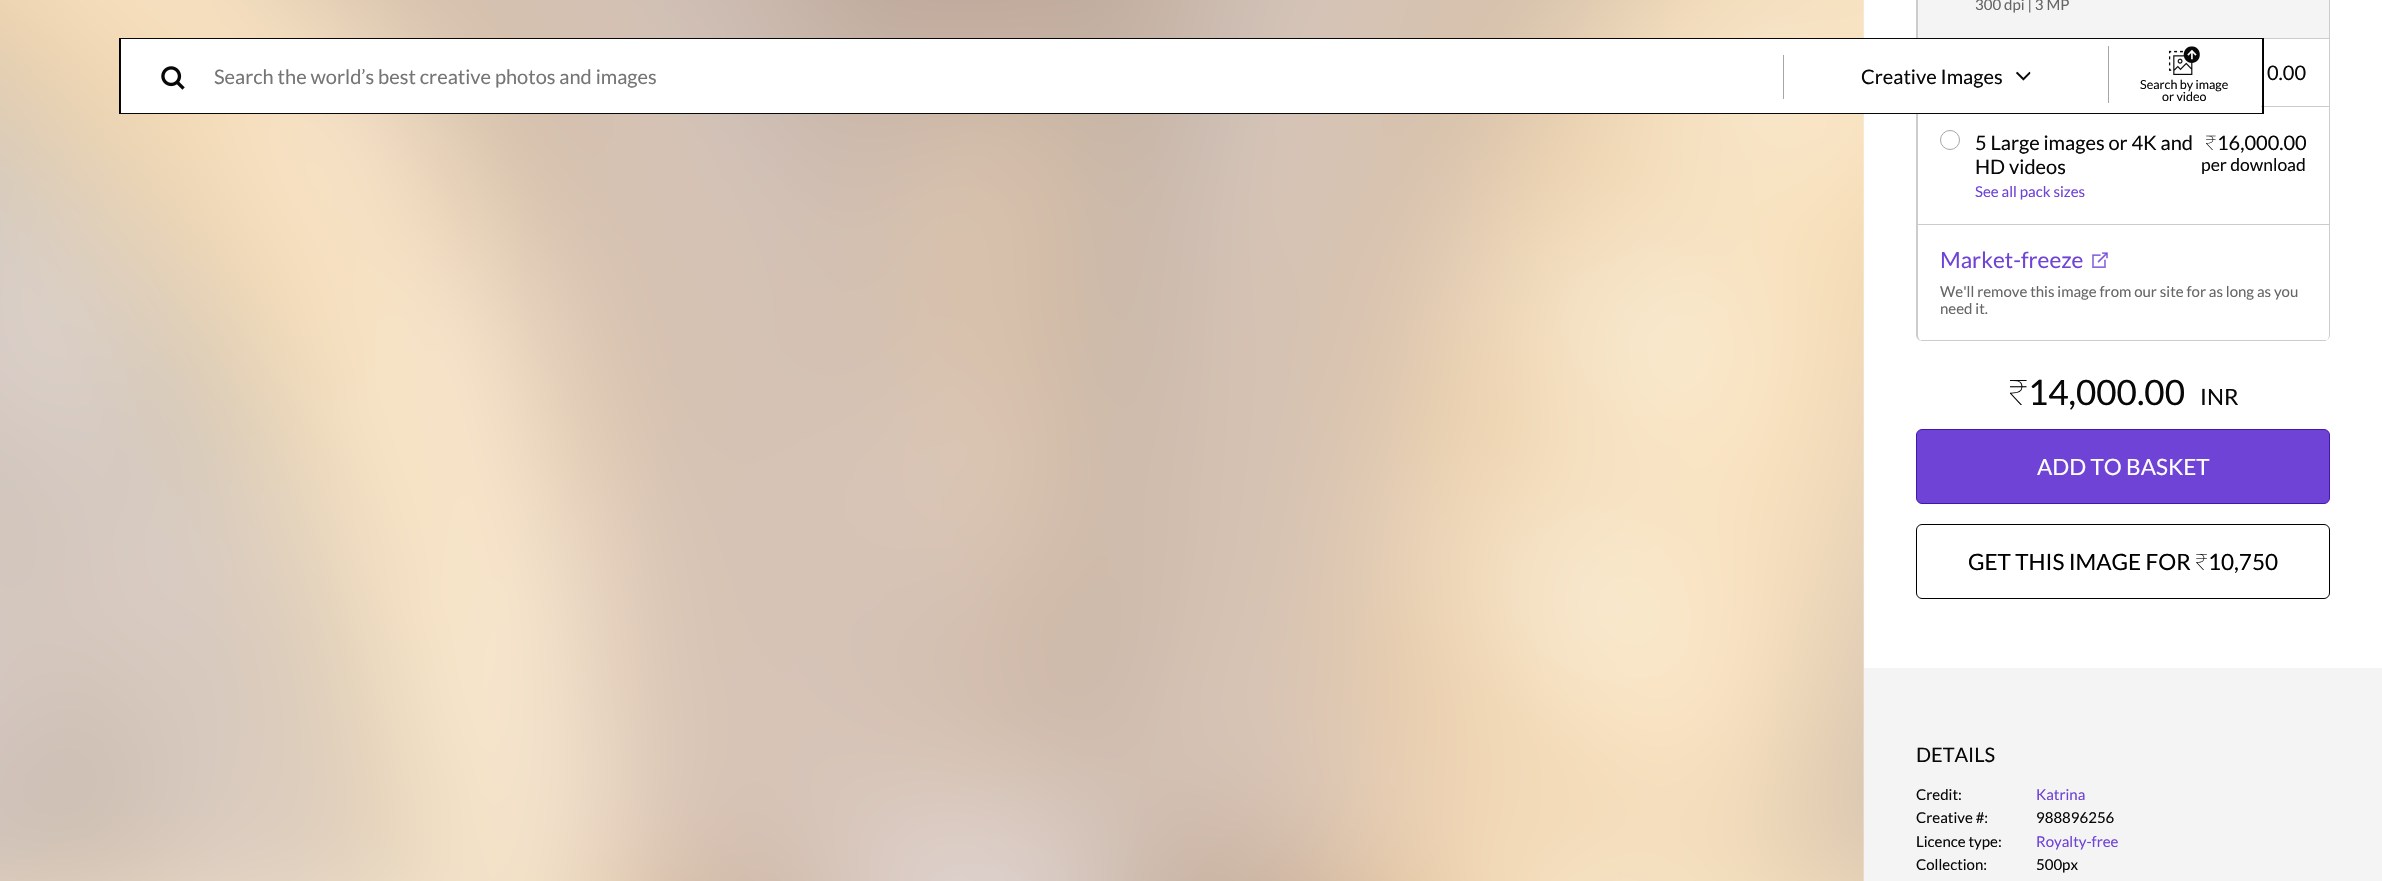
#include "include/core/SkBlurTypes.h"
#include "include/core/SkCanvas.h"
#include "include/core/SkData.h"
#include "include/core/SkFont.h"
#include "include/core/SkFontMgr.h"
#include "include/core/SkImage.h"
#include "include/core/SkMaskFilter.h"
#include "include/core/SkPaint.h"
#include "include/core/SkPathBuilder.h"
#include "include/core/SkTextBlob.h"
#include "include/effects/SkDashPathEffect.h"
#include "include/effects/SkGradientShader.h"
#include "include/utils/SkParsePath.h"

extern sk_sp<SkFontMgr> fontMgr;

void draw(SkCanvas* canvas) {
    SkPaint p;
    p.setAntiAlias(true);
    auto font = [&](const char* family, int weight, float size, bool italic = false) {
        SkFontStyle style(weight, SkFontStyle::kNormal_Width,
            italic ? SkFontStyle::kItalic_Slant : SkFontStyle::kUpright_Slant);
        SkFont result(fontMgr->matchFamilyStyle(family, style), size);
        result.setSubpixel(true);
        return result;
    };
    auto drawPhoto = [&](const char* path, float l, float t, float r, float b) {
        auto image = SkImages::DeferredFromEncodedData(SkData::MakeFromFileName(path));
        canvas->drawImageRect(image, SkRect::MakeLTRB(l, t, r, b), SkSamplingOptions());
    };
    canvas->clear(0xFFFFFFFF);
    drawPhoto("media/1.png", 0, 0, 1864, 881);
    p.setColor(0xFFCCCCCC);
    canvas->drawPath(SkPathBuilder(SkPathFillType::kEvenOdd).moveTo(1922, -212).lineTo(2324, -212).cubicTo(2327, -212, 2330, -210, 2330, -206).lineTo(2330, 335).cubicTo(2330, 338, 2327, 341, 2324, 341).lineTo(1922, 341).cubicTo(1919, 341, 1916, 338, 1916, 335).lineTo(1916, -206).cubicTo(1916, -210, 1919, -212, 1922, -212).close().moveTo(1922, -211).lineTo(2324, -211).cubicTo(2327, -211, 2329, -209, 2329, -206).lineTo(2329, 335).cubicTo(2329, 338, 2327, 341, 2324, 341).lineTo(1922, 341).cubicTo(1920, 341, 1918, 338, 1918, 335).lineTo(1918, -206).cubicTo(1918, -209, 1920, -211, 1922, -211).close().detach(), p);
    p.setColor(0xFFF4F4F4);
    canvas->drawRect(SkRect::MakeLTRB(1918, 0, 2329, 38), p);
    p.setColor(0xFFCCCCCC);
    canvas->drawRect(SkRect::MakeLTRB(2264, 38, 2329, 39), p);
    auto font1 = font("Lato", 400, 15);
    p.setColor(0xFF666666);
    canvas->drawString("300 dpi | 3 MP", 1975, 10, font1, p);
    p.setColor(0xFFCCCCCC);
    canvas->drawRect(SkRect::MakeLTRB(2261, 106, 2329, 107), p);
    auto font2 = font("Lato", 400, 20);
    p.setColor(0xFF080808);
    canvas->drawString("0.00", 2267, 80, font2, p);
    p.setColor(0xFFCCCCCC);
    canvas->drawRect(SkRect::MakeLTRB(1918, 224, 2329, 225), p);
    p.setStyle(SkPaint::kStroke_Style);
    p.setStrokeWidth(1);
    p.setColor(0xFFA6A6A6);
    canvas->drawCircle(1950, 140, 9.5f, p);
    p.setStyle(SkPaint::kFill_Style);
    p.setColor(0xFF080808);
    canvas->drawString("5 Large images or 4K and", 1975, 150, font2, p);
    canvas->drawString("HD videos", 1975, 174, font2, p);
    p.setColor(0xFF6F43D6);
    canvas->drawString("See all pack sizes", 1975, 197, font1, p);
    auto font3 = font("Noto Sans", 100, 20);
    p.setColor(0xFF080808);
    canvas->drawString("₹", 2205, 150, font3, p);
    canvas->drawString("16,000.00", 2217, 150, font2, p);
    auto font4 = font("Lato", 400, 17.5f);
    canvas->drawString("per download", 2201, 171, font4, p);
    p.setColor(0xFFCCCCCC);
    canvas->drawRect(SkRect::MakeLTRB(1921, 340, 2326, 341), p);
    auto font5 = font("Lato", 400, 22.5f);
    p.setColor(0xFF6F43D6);
    canvas->drawString("Market-freeze", 1940, 268, font5, p);
    drawPhoto("media/2.png", 2092, 252, 2108, 268);
    p.setColor(0xFF666666);
    canvas->drawString("We'll remove this image from our site for as long as you", 1940, 297, font1, p);
    canvas->drawString("need it.", 1940, 314, font1, p);
    auto font6 = font("Noto Sans", 100, 35);
    p.setColor(0xFF080808);
    canvas->drawString("₹", 2008, 405, font6, p);
    auto font7 = font("Lato", 400, 35);
    canvas->drawString("14,000.00", 2028, 405, font7, p);
    canvas->drawString("INR", 2200, 405, font5, p);
    p.setColor(0xFF6F43D6);
    canvas->drawRoundRect(SkRect::MakeLTRB(1916.5f, 429.5f, 2329.5f, 503.5f), 5.5f, 5.5f, p);
    p.setStyle(SkPaint::kStroke_Style);
    p.setColor(0xFF4316AC);
    canvas->drawRoundRect(SkRect::MakeLTRB(1916.5f, 429.5f, 2329.5f, 503.5f), 5.5f, 5.5f, p);
    p.setStyle(SkPaint::kFill_Style);
    p.setColor(0xFFFFFFFF);
    canvas->drawString("ADD TO BASKET", 2037, 475, font5, p);
    p.setStyle(SkPaint::kStroke_Style);
    p.setColor(0xFF000000);
    canvas->drawRoundRect(SkRect::MakeLTRB(1916.5f, 524.5f, 2329.5f, 598.5f), 5.5f, 5.5f, p);
    p.setStyle(SkPaint::kFill_Style);
    canvas->drawString("GET THIS IMAGE FOR", 1968, 570, font5, p);
    auto font8 = font("Noto Sans", 100, 22.5f);
    canvas->drawString("₹", 2195, 570, font8, p);
    canvas->drawString("10,750", 2208, 570, font5, p);
    p.setColor(0xFFF4F4F4);
    canvas->drawRect(SkRect::MakeLTRB(1864, 668, 2382, 881), p);
    p.setColor(0xFF080808);
    canvas->drawString("DETAILS", 1916, 762, font2, p);
    canvas->drawString("Credit:", 1916, 800, font1, p);
    p.setColor(0xFF6F43D6);
    canvas->drawString("Katrina", 2036, 800, font1, p);
    p.setColor(0xFF080808);
    {
        const struct { const char* s; float x, y; } items[] = {
            {"Creative #:", 1916, 823},
            {"988896256", 2036, 823},
            {"Licence type:", 1916, 847},
        };
        for (auto [s, x, y] : items) {
            canvas->drawString(s, x, y, font1, p);
        }
    }
    p.setColor(0xFF6F43D6);
    canvas->drawString("Royalty-free", 2036, 847, font1, p);
    p.setColor(0xFF080808);
    canvas->drawString("Collection:", 1916, 870, font1, p);
    canvas->drawString("500px", 2036, 870, font1, p);
    p.setColor(0xFF000000);
    canvas->drawRect(SkRect::MakeLTRB(2263, 38, 2264, 114), p);
    canvas->drawRect(SkRect::MakeLTRB(119, 38, 120, 114), p);
    p.setStyle(SkPaint::kStroke_Style);
    p.setColor(0xFF080808);
    canvas->drawRect(SkRect::MakeLTRB(120.5f, 38.5f, 2262.5f, 113.5f), p);
    p.setStyle(SkPaint::kFill_Style);
    p.setColor(0xFFFFFFFF);
    canvas->drawRect(SkRect::MakeLTRB(121, 39, 1918, 113), p);
    drawPhoto("media/3.png", 161, 66, 185, 90);
    p.setColor(0xFF757575);
    canvas->drawString("Search the world’s best creative photos and images", 214, 84, font2, p);
    p.setColor(0xFFA6A6A6);
    canvas->drawRect(SkRect::MakeLTRB(1783, 55, 1784, 99), p);
    p.setColor(0xFF080808);
    canvas->drawString("Creative Images", 1861, 84, font2, p);
    drawPhoto("media/4.png", 2016, 71, 2031, 81);
    p.setColor(0xFFA6A6A6);
    canvas->drawRect(SkRect::MakeLTRB(2108, 46, 2109, 103), p);
    drawPhoto("media/5.png", 2168, 46, 2200, 75);
    auto font9 = font("Lato", 400, 12.5f);
    p.setColor(0xFF080808);
    canvas->drawString("Search by image", 2140, 89, font9, p);
    canvas->drawString("or video", 2162, 101, font9, p);
}
